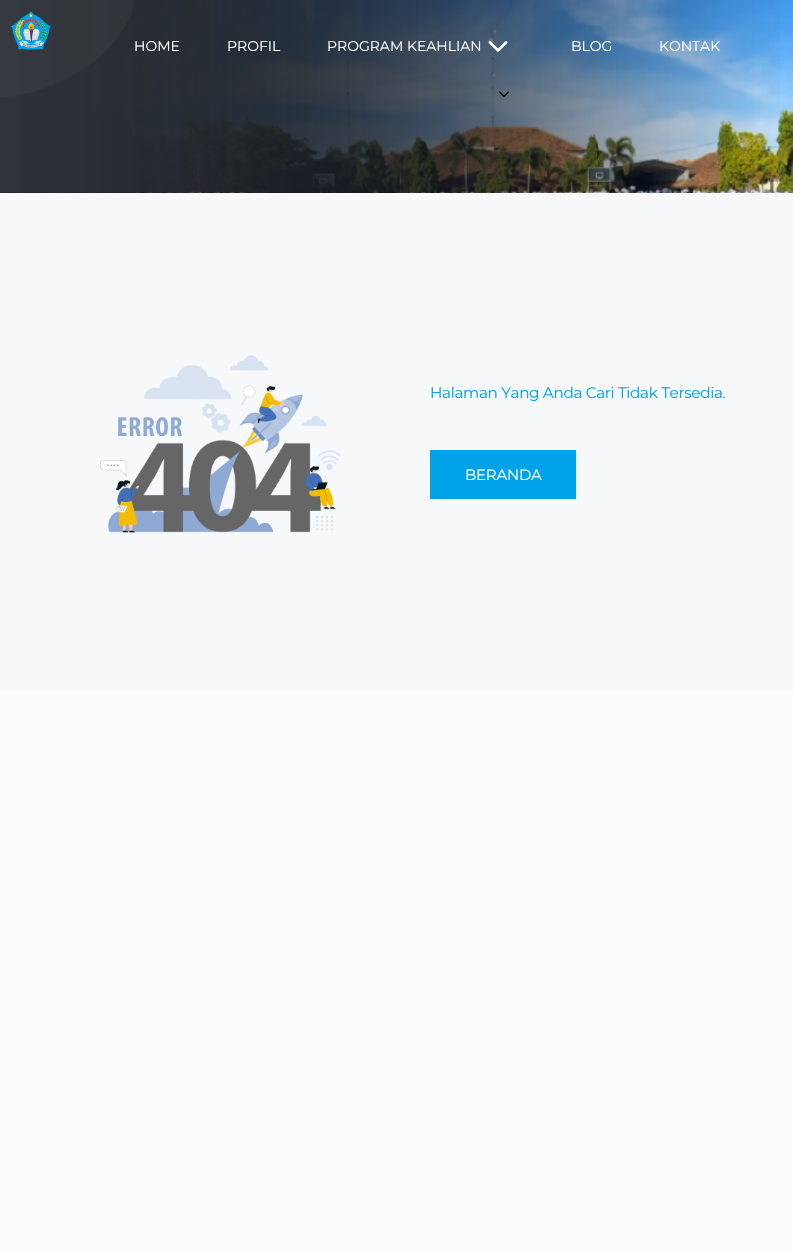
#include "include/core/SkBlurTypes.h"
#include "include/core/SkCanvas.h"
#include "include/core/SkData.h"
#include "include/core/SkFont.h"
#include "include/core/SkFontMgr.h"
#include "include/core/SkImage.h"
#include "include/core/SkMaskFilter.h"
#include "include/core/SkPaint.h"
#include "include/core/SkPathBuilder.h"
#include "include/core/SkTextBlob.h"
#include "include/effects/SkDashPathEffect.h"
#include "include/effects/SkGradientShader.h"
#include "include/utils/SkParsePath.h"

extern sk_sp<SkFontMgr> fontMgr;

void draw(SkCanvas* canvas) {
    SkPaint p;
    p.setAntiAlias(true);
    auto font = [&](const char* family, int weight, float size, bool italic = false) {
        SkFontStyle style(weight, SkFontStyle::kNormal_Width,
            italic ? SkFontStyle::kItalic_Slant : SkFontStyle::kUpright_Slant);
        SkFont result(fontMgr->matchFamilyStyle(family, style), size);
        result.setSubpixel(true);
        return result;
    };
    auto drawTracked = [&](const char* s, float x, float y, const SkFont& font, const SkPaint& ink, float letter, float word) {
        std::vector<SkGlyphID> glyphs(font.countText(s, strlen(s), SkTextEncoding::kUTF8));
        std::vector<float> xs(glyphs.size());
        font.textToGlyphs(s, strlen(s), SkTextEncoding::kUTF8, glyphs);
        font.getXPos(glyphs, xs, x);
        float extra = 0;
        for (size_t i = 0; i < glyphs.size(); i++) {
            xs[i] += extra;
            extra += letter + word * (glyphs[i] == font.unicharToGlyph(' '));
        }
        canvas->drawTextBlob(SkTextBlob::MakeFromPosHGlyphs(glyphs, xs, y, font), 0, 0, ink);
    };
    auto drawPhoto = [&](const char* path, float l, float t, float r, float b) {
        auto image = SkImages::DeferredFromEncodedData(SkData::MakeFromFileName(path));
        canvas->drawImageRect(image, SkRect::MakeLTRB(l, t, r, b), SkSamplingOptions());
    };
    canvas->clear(0xFFFCFCFC);
    drawPhoto("media/4.png", 0, 0, 793, 193);
    drawPhoto("media/5.png", 0, 0, 780, 193);
    drawPhoto("media/1.png", 10, 11, 52, 50);
    auto font1 = font("Montserrat", 400, 14);
    p.setColor(0xFFFFFFFF);
    {
        const struct { const char* s; float x, y; } items[] = {
            {"HOME", 134, 51},
            {"PROFIL", 227, 51},
            {"PROGRAM KEAHLIAN", 327, 51},
        };
        for (auto [s, x, y] : items) {
            canvas->drawString(s, x, y, font1, p);
        }
    }
    drawPhoto("media/2.png", 488, 41, 508, 52);
    drawPhoto("media/3.png", 499, 91, 509, 97);
    canvas->drawString("BLOG", 571, 51, font1, p);
    canvas->drawString("KONTAK", 659, 51, font1, p);
    p.setColor(0xFFF7F8F9);
    canvas->drawRect(SkRect::MakeLTRB(0, 193, 793, 690), p);
    drawPhoto("media/6.png", 100, 355, 341, 533);
    auto font2 = font("Montserrat", 400, 15.25f);
    p.setColor(0xFF00A2E9);
    drawTracked("Halaman Yang Anda Cari Tidak Tersedia.", 430, 398, font2, p, -0.35f, 0);
    canvas->drawRect(SkRect::MakeLTRB(430, 450, 576, 499), p);
    auto font3 = font("Montserrat", 400, 15);
    p.setColor(0xFFFFFFFF);
    drawTracked("BERANDA", 465, 480, font3, p, -0.25f, 0);
}
